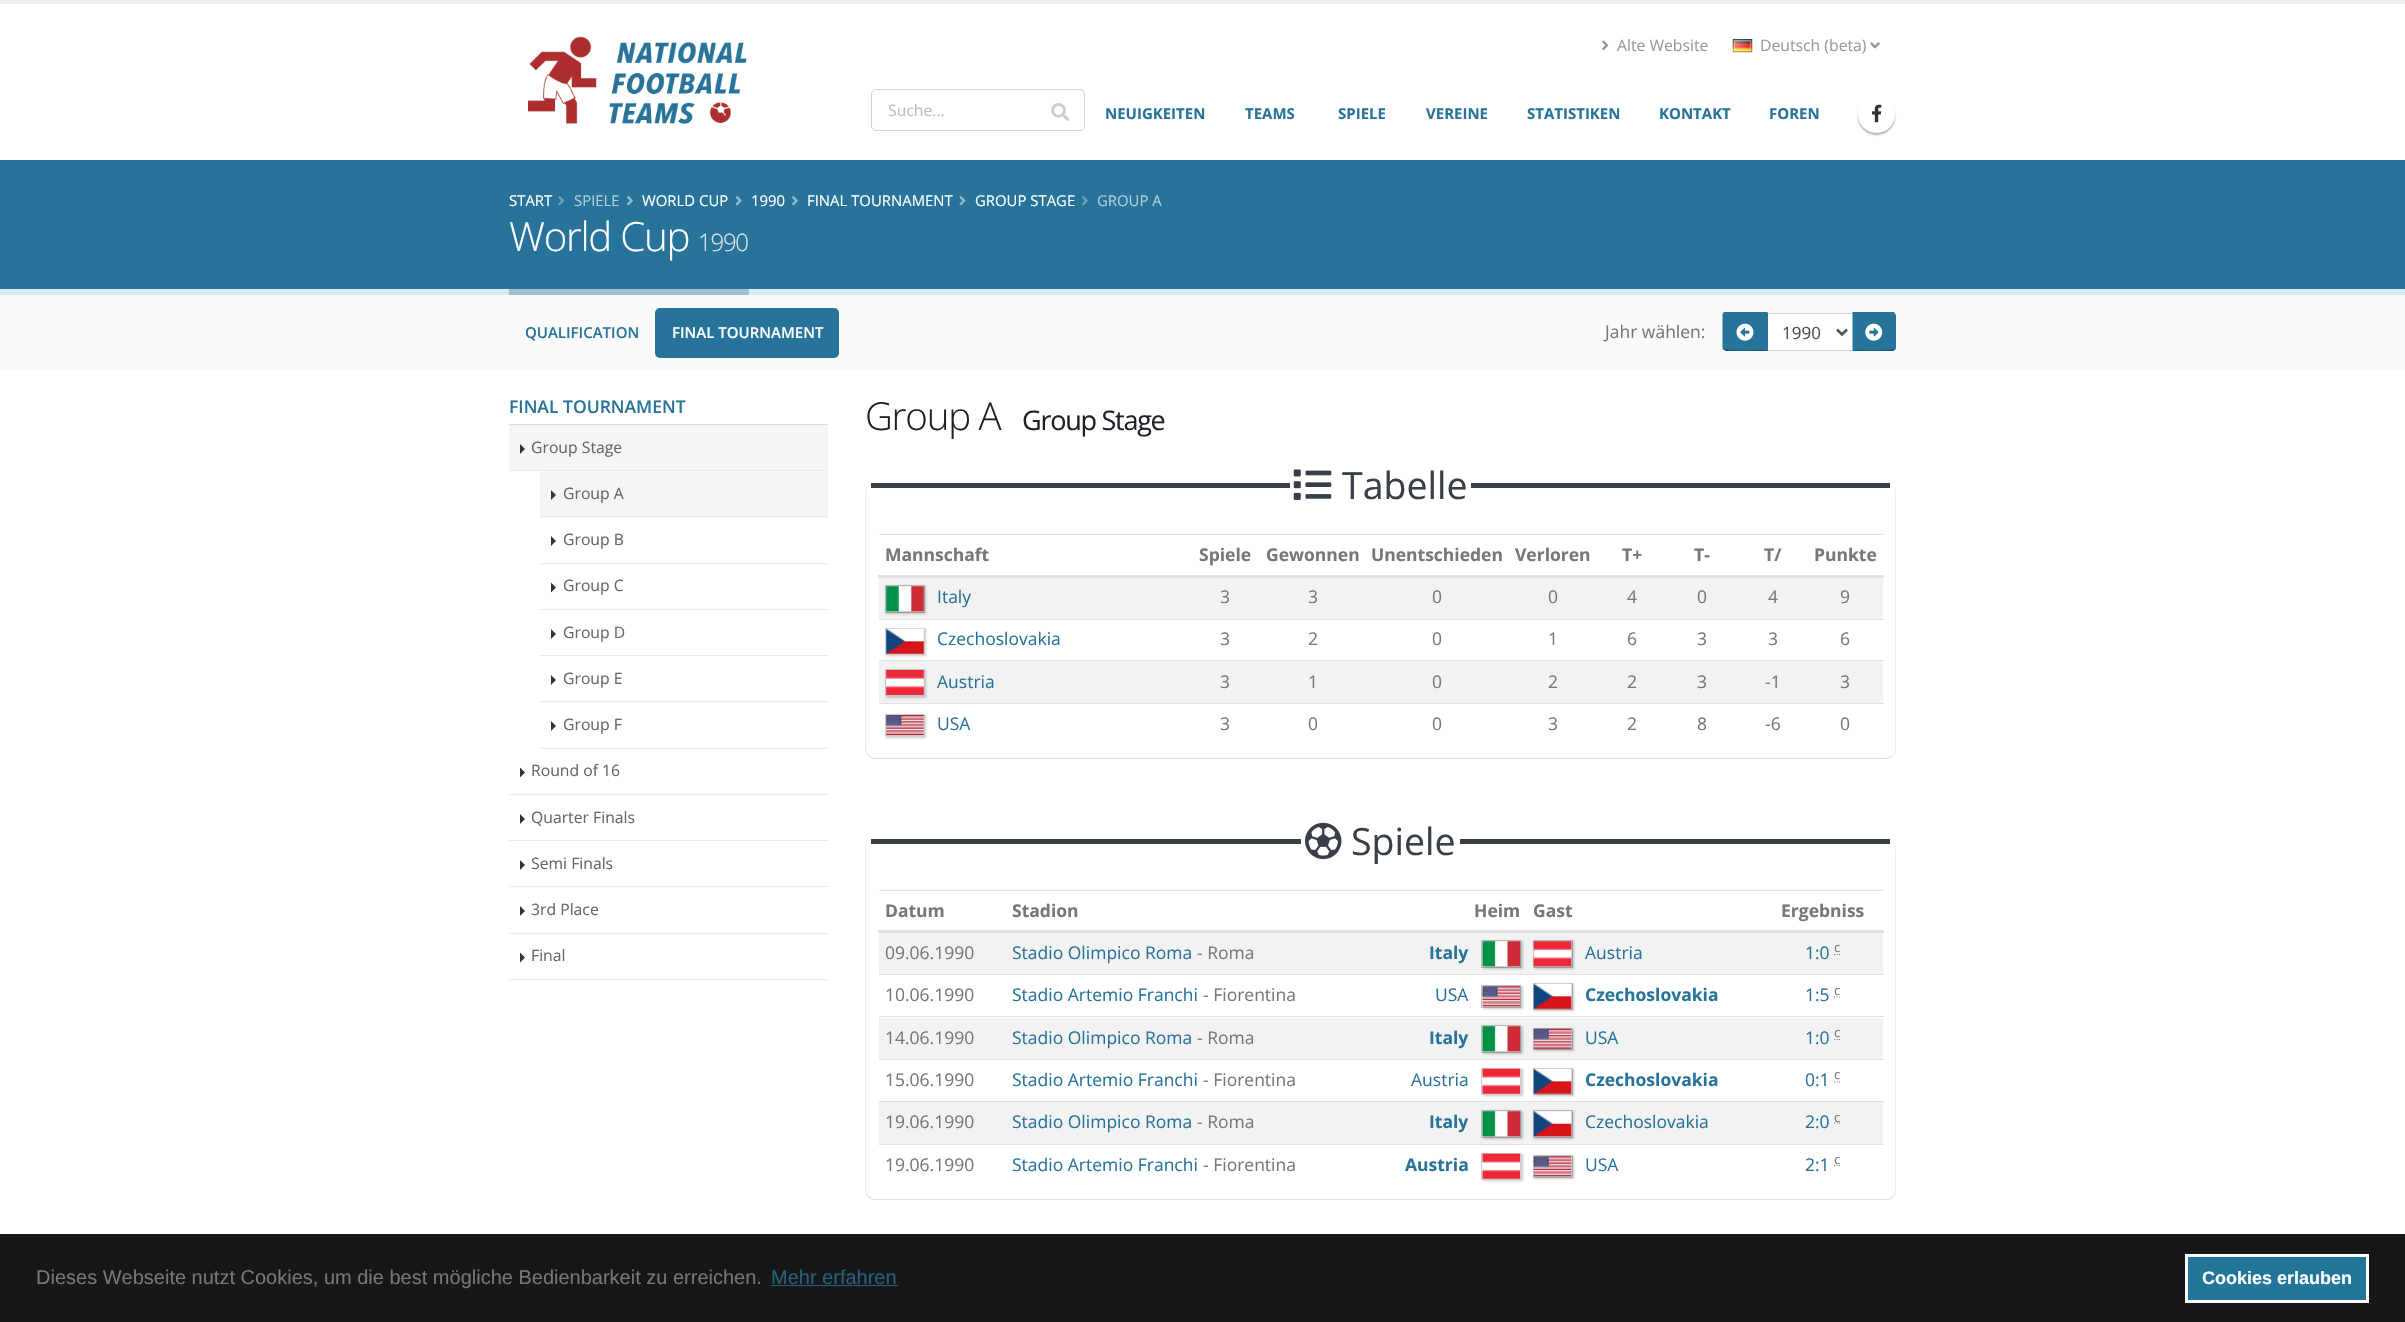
#include "include/core/SkBlurTypes.h"
#include "include/core/SkCanvas.h"
#include "include/core/SkData.h"
#include "include/core/SkFont.h"
#include "include/core/SkFontMgr.h"
#include "include/core/SkImage.h"
#include "include/core/SkMaskFilter.h"
#include "include/core/SkPaint.h"
#include "include/core/SkPathBuilder.h"
#include "include/core/SkTextBlob.h"
#include "include/effects/SkDashPathEffect.h"
#include "include/effects/SkGradientShader.h"
#include "include/utils/SkParsePath.h"

extern sk_sp<SkFontMgr> fontMgr;

void draw(SkCanvas* canvas) {
    SkPaint p;
    p.setAntiAlias(true);
    auto font = [&](const char* family, int weight, float size, bool italic = false) {
        SkFontStyle style(weight, SkFontStyle::kNormal_Width,
            italic ? SkFontStyle::kItalic_Slant : SkFontStyle::kUpright_Slant);
        SkFont result(fontMgr->matchFamilyStyle(family, style), size);
        result.setSubpixel(true);
        return result;
    };
    auto drawTracked = [&](const char* s, float x, float y, const SkFont& font, const SkPaint& ink, float letter, float word) {
        std::vector<SkGlyphID> glyphs(font.countText(s, strlen(s), SkTextEncoding::kUTF8));
        std::vector<float> xs(glyphs.size());
        font.textToGlyphs(s, strlen(s), SkTextEncoding::kUTF8, glyphs);
        font.getXPos(glyphs, xs, x);
        float extra = 0;
        for (size_t i = 0; i < glyphs.size(); i++) {
            xs[i] += extra;
            extra += letter + word * (glyphs[i] == font.unicharToGlyph(' '));
        }
        canvas->drawTextBlob(SkTextBlob::MakeFromPosHGlyphs(glyphs, xs, y, font), 0, 0, ink);
    };
    auto drawPhoto = [&](const char* path, float l, float t, float r, float b) {
        auto image = SkImages::DeferredFromEncodedData(SkData::MakeFromFileName(path));
        canvas->drawImageRect(image, SkRect::MakeLTRB(l, t, r, b), SkSamplingOptions());
    };
    canvas->clear(0xFFFFFFFF);
    p.setColor(0xFFEDEDED);
    canvas->drawRect(SkRect::MakeLTRB(0, 0, 2405, 4), p);
    drawPhoto("media/1.png", 528, 36, 747, 124);
    drawPhoto("media/2.png", 1602, 40, 1609, 51);
    auto font1 = font("Open Sans", 400, 15.75f);
    p.setColor(0xFF999999);
    canvas->drawString("Alte Website", 1617, 51, font1, p);
    drawPhoto("media/3.png", 1732, 38, 1753, 53);
    canvas->drawString("Deutsch (beta)", 1760, 51, font1, p);
    drawPhoto("media/4.png", 1870, 42, 1880, 49);
    p.setStyle(SkPaint::kStroke_Style);
    p.setStrokeWidth(1);
    p.setColor(0xFFCED4DA);
    canvas->drawRoundRect(SkRect::MakeLTRB(871.5f, 89.5f, 1084.5f, 130.5f), 4.5f, 4.5f, p);
    p.setStyle(SkPaint::kFill_Style);
    p.setColor(0xFFBDBDBD);
    canvas->drawString("Suche...", 888, 116, font1, p);
    drawPhoto("media/5.png", 1051, 103, 1070, 121);
    auto font2 = font("Open Sans", 700, 15);
    p.setColor(0xFF277399);
    {
        const struct { const char* s; float x, y; } items[] = {
            {"NEUIGKEITEN", 1105, 119},
            {"TEAMS", 1245, 119},
            {"SPIELE", 1338, 119},
            {"VEREINE", 1426, 119},
            {"STATISTIKEN", 1527, 119},
            {"KONTAKT", 1659, 119},
            {"FOREN", 1769, 119},
        };
        for (auto [s, x, y] : items) {
            canvas->drawString(s, x, y, font2, p);
        }
    }
    p.setColor(0x4D000000);
    p.setMaskFilter(SkMaskFilter::MakeBlur(kNormal_SkBlurStyle, 1));
    canvas->drawRoundRect(SkRect::MakeLTRB(1858, 98, 1895, 135), 18.5f, 18.5f, p);
    p.setMaskFilter(nullptr);
    p.setColor(0xFFFFFFFF);
    canvas->drawRoundRect(SkRect::MakeLTRB(1858, 95, 1895, 133), 18.5f, 18.5f, p);
    drawPhoto("media/6.png", 1872, 104, 1882, 123);
    p.setColor(0xFF277399);
    canvas->drawRect(SkRect::MakeLTRB(0, 160, 2405, 289), p);
    p.setColor(0xFFDBE9F0);
    canvas->drawRect(SkRect::MakeLTRB(0, 289, 2405, 295), p);
    auto font3 = font("Open Sans", 400, 14.9f);
    p.setColor(0xFFFFFFFF);
    canvas->drawString("START", 509, 206, font3, p);
    drawPhoto("media/7.png", 558, 196, 565, 206);
    p.setColor(0xFFB3CEDB);
    canvas->drawString("SPIELE", 574, 206, font3, p);
    drawPhoto("media/8.png", 627, 196, 633, 206);
    p.setColor(0xFFFFFFFF);
    canvas->drawString("WORLD CUP", 642, 206, font3, p);
    drawPhoto("media/9.png", 735, 196, 742, 206);
    canvas->drawString("1990", 751, 206, font3, p);
    drawPhoto("media/8.png", 792, 196, 798, 206);
    canvas->drawString("FINAL TOURNAMENT", 807, 206, font3, p);
    drawPhoto("media/10.png", 959, 196, 966, 206);
    canvas->drawString("GROUP STAGE", 975, 206, font3, p);
    drawPhoto("media/11.png", 1082, 196, 1088, 206);
    p.setColor(0xFFB3CEDB);
    canvas->drawString("GROUP A", 1097, 206, font3, p);
    p.setColor(0xFF9EC1D2);
    canvas->drawRect(SkRect::MakeLTRB(509, 289, 749, 295), p);
    auto font4 = font("Open Sans", 300, 40.25f);
    p.setColor(0xFFFFFFFF);
    drawTracked("World Cup", 509, 251, font4, p, -1.25f, 0);
    auto font5 = font("Open Sans", 300, 24);
    p.setColor(0xFFDEE2E6);
    drawTracked("1990", 698, 251, font5, p, -1.25f, 0);
    p.setColor(0xFFFAFAFA);
    canvas->drawRect(SkRect::MakeLTRB(0, 295, 2405, 370), p);
    auto font6 = font("Open Sans", 600, 15);
    p.setColor(0xFF277399);
    canvas->drawString("QUALIFICATION", 525, 338, font6, p);
    canvas->drawRoundRect(SkRect::MakeLTRB(655, 308, 839, 358), 5, 5, p);
    p.setColor(0xFFFFFFFF);
    canvas->drawString("FINAL TOURNAMENT", 672, 338, font6, p);
    auto font7 = font("Open Sans", 400, 17.5f);
    p.setColor(0xFF777777);
    canvas->drawString("Jahr wählen:", 1605, 338, font7, p);
    p.setColor(0xFFFFFFFF);
    canvas->drawRect(SkRect::MakeLTRB(1768, 314, 1853, 350), p);
    p.setStyle(SkPaint::kStroke_Style);
    p.setColor(0xFFCED4DA);
    canvas->drawRect(SkRect::MakeLTRB(1766.5f, 313.5f, 1853.5f, 350.5f), p);
    p.setStyle(SkPaint::kFill_Style);
    p.setColor(0xFF277399);
    canvas->drawPath(SkPathBuilder().moveTo(1727, 313).lineTo(1768, 313).lineTo(1768, 351).lineTo(1727, 351).cubicTo(1725, 351, 1723, 349, 1723, 347).lineTo(1723, 317).cubicTo(1723, 315, 1725, 313, 1727, 313).close().detach(), p);
    canvas->drawPath(SkPathBuilder().moveTo(1726, 314).lineTo(1725, 315).lineTo(1723, 313).lineTo(1724, 312).lineTo(1768, 312).lineTo(1766, 314).close().detach(), p);
    canvas->drawPath(SkPathBuilder().moveTo(1767.5f, 312.5f).lineTo(1767.5f, 351).lineTo(1766, 350).lineTo(1766, 314).close().detach(), p);
    p.setColor(0xFF1D5470);
    canvas->drawPath(SkPathBuilder().moveTo(1767, 351).lineTo(1726, 351).lineTo(1724, 350).lineTo(1725, 349).cubicTo(1726, 351, 1761, 350, 1766, 350).close().detach(), p);
    p.setColor(0xFF277399);
    canvas->drawPath(SkPathBuilder().moveTo(1722.5f, 314).lineTo(1723, 313).lineTo(1724.5f, 314.5f).lineTo(1724, 316).lineTo(1724, 342).cubicTo(1724, 343, 1723.5f, 347.5f, 1724.5f, 349).lineTo(1723.5f, 350).lineTo(1722.5f, 349).close().detach(), p);
    drawPhoto("media/12.png", 1736, 323, 1754, 341);
    p.setStyle(SkPaint::kStroke_Style);
    p.setStrokeWidth(2.5f);
    p.setColor(0xFF495057);
    canvas->drawPath(SkPathBuilder().moveTo(1837, 329.5f).lineTo(1842, 334.5f).lineTo(1847, 329.5f).detach(), p);
    auto font8 = font("Open Sans", 400, 17);
    p.setStyle(SkPaint::kFill_Style);
    canvas->drawString("1990", 1782, 339, font8, p);
    p.setColor(0xFF277399);
    canvas->drawPath(SkPathBuilder().moveTo(1853, 313).lineTo(1892, 313).cubicTo(1894, 313, 1896, 315, 1896, 317).lineTo(1896, 347).cubicTo(1896, 349, 1894, 351, 1892, 351).lineTo(1853, 351).close().detach(), p);
    canvas->drawPath(SkPathBuilder().moveTo(1854, 314).lineTo(1852, 312).lineTo(1894, 312).lineTo(1895, 314).lineTo(1894, 315).lineTo(1892, 314).close().detach(), p);
    canvas->drawPath(SkPathBuilder().moveTo(1895, 313.5f).lineTo(1896, 315.5f).lineTo(1896, 347.5f).lineTo(1895, 350).lineTo(1894, 349).cubicTo(1896, 347.5f, 1895, 342.5f, 1895, 342).lineTo(1895, 316).lineTo(1894, 314.5f).close().detach(), p);
    p.setColor(0xFF1D5470);
    canvas->drawPath(SkPathBuilder().moveTo(1895, 350).cubicTo(1894, 350, 1893, 351, 1892, 351).lineTo(1853, 351).lineTo(1854, 350).cubicTo(1859, 350, 1892, 351, 1894, 349).close().detach(), p);
    p.setColor(0xFF277399);
    canvas->drawPath(SkPathBuilder().moveTo(1854, 314).lineTo(1854, 350).lineTo(1852.5f, 351).lineTo(1852.5f, 312.5f).close().detach(), p);
    drawPhoto("media/13.png", 1865, 323, 1883, 341);
    p.setColor(0xFFDBDBDB);
    canvas->drawRect(SkRect::MakeLTRB(509, 424, 828, 425), p);
    auto font9 = font("Open Sans", 600, 17.5f);
    p.setColor(0xFF277399);
    canvas->drawString("FINAL TOURNAMENT", 509, 413, font9, p);
    p.setColor(0xFFF5F5F5);
    canvas->drawRect(SkRect::MakeLTRB(509, 425, 828, 470), p);
    p.setColor(0xFFEDEDDE);
    canvas->drawRect(SkRect::MakeLTRB(509, 470, 828, 471), p);
    p.setColor(0xFF333333);
    canvas->drawPath(SkPathBuilder().moveTo(520, 454).lineTo(520, 444).lineTo(525, 449).close().detach(), p);
    p.setColor(0xFF666666);
    canvas->drawString("Group Stage", 531, 453, font1, p);
    p.setColor(0xFFF5F5F5);
    canvas->drawRect(SkRect::MakeLTRB(540, 471, 828, 518), p);
    p.setColor(0xFFEDEDDE);
    canvas->drawRect(SkRect::MakeLTRB(540, 516, 828, 517), p);
    p.setColor(0xFF333333);
    canvas->drawPath(SkPathBuilder().moveTo(551, 500).lineTo(551, 490).lineTo(556, 495).close().detach(), p);
    p.setColor(0xFF666666);
    canvas->drawString("Group A", 563, 499, font1, p);
    p.setColor(0xFFEDEDDE);
    canvas->drawRect(SkRect::MakeLTRB(540, 563, 828, 564), p);
    p.setColor(0xFF333333);
    canvas->drawPath(SkPathBuilder().moveTo(551, 546).lineTo(551, 536).lineTo(556, 541).close().detach(), p);
    p.setColor(0xFF666666);
    canvas->drawString("Group B", 563, 545, font1, p);
    p.setColor(0xFFEDEDDE);
    canvas->drawRect(SkRect::MakeLTRB(540, 609, 828, 610), p);
    p.setColor(0xFF333333);
    canvas->drawPath(SkPathBuilder().moveTo(551, 592.5f).lineTo(551, 582.5f).lineTo(556, 587.5f).close().detach(), p);
    p.setColor(0xFF666666);
    canvas->drawString("Group C", 563, 591, font1, p);
    p.setColor(0xFFEDEDDE);
    canvas->drawRect(SkRect::MakeLTRB(540, 655, 828, 656), p);
    p.setColor(0xFF333333);
    canvas->drawPath(SkPathBuilder().moveTo(551, 639).lineTo(551, 629).lineTo(556, 634).close().detach(), p);
    p.setColor(0xFF666666);
    canvas->drawString("Group D", 563, 638, font1, p);
    p.setColor(0xFFEDEDDE);
    canvas->drawRect(SkRect::MakeLTRB(540, 701, 828, 702), p);
    p.setColor(0xFF333333);
    canvas->drawPath(SkPathBuilder().moveTo(551, 685).lineTo(551, 675).lineTo(556, 680).close().detach(), p);
    p.setColor(0xFF666666);
    canvas->drawString("Group E", 563, 684, font1, p);
    p.setColor(0xFFEDEDDE);
    canvas->drawRect(SkRect::MakeLTRB(540, 748, 828, 749), p);
    p.setColor(0xFF333333);
    canvas->drawPath(SkPathBuilder().moveTo(551, 731).lineTo(551, 721).lineTo(556, 726).close().detach(), p);
    p.setColor(0xFF666666);
    canvas->drawString("Group F", 563, 730, font1, p);
    p.setColor(0xFFEDEDDE);
    canvas->drawRect(SkRect::MakeLTRB(509, 794, 828, 795), p);
    p.setColor(0xFF333333);
    canvas->drawPath(SkPathBuilder().moveTo(520, 777.5f).lineTo(520, 767.5f).lineTo(525, 772.5f).close().detach(), p);
    p.setColor(0xFF666666);
    canvas->drawString("Round of 16", 531, 776, font1, p);
    p.setColor(0xFFEDEDDE);
    canvas->drawRect(SkRect::MakeLTRB(509, 840, 828, 841), p);
    p.setColor(0xFF333333);
    canvas->drawPath(SkPathBuilder().moveTo(520, 824).lineTo(520, 814).lineTo(525, 819).close().detach(), p);
    p.setColor(0xFF666666);
    canvas->drawString("Quarter Finals", 531, 823, font1, p);
    p.setColor(0xFFEDEDDE);
    canvas->drawRect(SkRect::MakeLTRB(509, 886, 828, 887), p);
    p.setColor(0xFF333333);
    canvas->drawPath(SkPathBuilder().moveTo(520, 870).lineTo(520, 860).lineTo(525, 865).close().detach(), p);
    p.setColor(0xFF666666);
    canvas->drawString("Semi Finals", 531, 869, font1, p);
    p.setColor(0xFFEDEDDE);
    canvas->drawRect(SkRect::MakeLTRB(509, 933, 828, 934), p);
    p.setColor(0xFF333333);
    canvas->drawPath(SkPathBuilder().moveTo(520, 916).lineTo(520, 906).lineTo(525, 911).close().detach(), p);
    p.setColor(0xFF666666);
    canvas->drawString("3rd Place", 531, 915, font1, p);
    p.setColor(0xFFEDEDDE);
    canvas->drawRect(SkRect::MakeLTRB(509, 979, 828, 980), p);
    p.setColor(0xFF333333);
    canvas->drawPath(SkPathBuilder().moveTo(520, 962.5f).lineTo(520, 952.5f).lineTo(525, 957.5f).close().detach(), p);
    p.setColor(0xFF666666);
    canvas->drawString("Final", 531, 961, font1, p);
    auto font10 = font("Open Sans", 300, 38.5f);
    p.setColor(0xFF1D2127);
    drawTracked("Group A", 865, 430, font10, p, -1.25f, 0);
    auto font11 = font("Open Sans", 400, 27);
    drawTracked("Group Stage", 1022, 430, font11, p, -1.25f, 0);
    canvas->save();
    canvas->clipPath(SkPathBuilder().moveTo(875, 484).lineTo(1886, 484).cubicTo(1891.5f, 484, 1896, 488.5f, 1896, 494).lineTo(1896, 749).cubicTo(1896, 754.5f, 1891.5f, 759, 1886, 759).lineTo(875, 759).cubicTo(869.5f, 759, 865, 754.5f, 865, 749).lineTo(865, 494).cubicTo(865, 488.5f, 869.5f, 484, 875, 484).close().detach(), true);
    {
        const SkColor colors[] = {0xFFFFFFFF, 0xFFFCFCFC};
        const float stops[] = {0.01f, 0.98f};
        const SkPoint ends[] = {{1381, 484}, {1381, 758}};
        p.setShader(SkGradientShader::MakeLinear(ends, colors, stops, 2, SkTileMode::kClamp));
        p.setAlpha(255);
    }
    canvas->drawPath(SkPathBuilder().moveTo(875, 484).lineTo(1886, 484).cubicTo(1891.5f, 484, 1896, 488.5f, 1896, 494).lineTo(1896, 758).lineTo(865, 758).lineTo(865, 494).cubicTo(865, 488.5f, 869.5f, 484, 875, 484).close().detach(), p);
    canvas->restore();
    p.setShader(nullptr);
    p.setColor(0xFFECECEC);
    canvas->drawPath(SkPathBuilder().moveTo(1893, 756).cubicTo(1895, 754, 1896, 751, 1896, 749).lineTo(1896, 494).cubicTo(1896, 488, 1892, 484, 1886, 484).cubicTo(1891, 484, 1895, 488, 1895, 494).lineTo(1895, 749).cubicTo(1895, 751, 1894, 754, 1893, 755).close().detach(), p);
    p.setColor(0xFFDFDFDF);
    canvas->drawPath(SkPathBuilder().moveTo(869, 755).cubicTo(870, 757, 872, 758, 875, 758).lineTo(1886, 758).cubicTo(1889, 758, 1891, 757, 1893, 755).lineTo(1893, 756).cubicTo(1892, 757, 1890, 758, 1888, 759).lineTo(873, 759).cubicTo(871, 758, 869, 757, 868, 756).close().detach(), p);
    p.setColor(0xFFECECEC);
    canvas->drawPath(SkPathBuilder().moveTo(875, 484).cubicTo(870, 484, 866, 488, 866, 494).lineTo(866, 749).cubicTo(866, 751, 867, 754, 869, 755).lineTo(868, 756).cubicTo(866, 754, 865, 752, 865, 749).lineTo(865, 494).cubicTo(865, 488, 869, 484, 875, 484).close().detach(), p);
    p.setColor(0xFFFFFFFF);
    canvas->drawRoundRect(SkRect::MakeLTRB(866, 483, 1895, 756), 10, 10, p);
    p.setColor(0xFF383F48);
    canvas->drawRect(SkRect::MakeLTRB(871, 483, 1890, 488), p);
    p.setColor(0xFFFFFFFF);
    canvas->drawRect(SkRect::MakeLTRB(1290, 483, 1471, 488), p);
    drawPhoto("media/14.png", 1293, 469, 1332, 500);
    auto font12 = font("Open Sans", 400, 37.5f);
    p.setColor(0xFF383F48);
    canvas->drawString("Tabelle", 1342, 499, font12, p);
    auto font13 = font("Open Sans", 700, 17.5f);
    p.setColor(0xFF777777);
    {
        const struct { const char* s; float x, y; } items[] = {
            {"Mannschaft", 885, 561},
            {"Spiele", 1199, 561},
            {"Gewonnen", 1266, 561},
            {"Unentschieden", 1371, 561},
            {"Verloren", 1515, 561},
            {"T+", 1622, 561},
            {"T-", 1694, 561},
            {"T/", 1764, 561},
        };
        for (auto [s, x, y] : items) {
            canvas->drawString(s, x, y, font13, p);
        }
    }
    p.setColor(0xFFDEE2E6);
    canvas->drawRect(SkRect::MakeLTRB(879, 534, 1884, 535), p);
    canvas->drawRect(SkRect::MakeLTRB(878, 575, 1884, 578), p);
    p.setColor(0xFF777777);
    canvas->drawString("Punkte", 1814, 561, font13, p);
    p.setColor(0xFFF2F2F2);
    canvas->drawRect(SkRect::MakeLTRB(879, 578, 1883, 619), p);
    p.setColor(0x33000000);
    p.setMaskFilter(SkMaskFilter::MakeBlur(kNormal_SkBlurStyle, 1));
    canvas->drawRect(SkRect::MakeLTRB(886, 586, 926, 614), p);
    p.setMaskFilter(nullptr);
    p.setStyle(SkPaint::kStroke_Style);
    p.setStrokeWidth(1);
    canvas->drawRect(SkRect::MakeLTRB(885.5f, 585.5f, 924.5f, 612.5f), p);
    drawPhoto("media/15.png", 886, 586, 924, 612);
    p.setStyle(SkPaint::kFill_Style);
    p.setColor(0xFF277399);
    canvas->drawString("Italy", 937, 603, font7, p);
    p.setColor(0xFF777777);
    {
        const struct { const char* s; float x, y; } items[] = {
            {"3", 1220, 603},
            {"3", 1308, 603},
            {"0", 1432, 603},
            {"0", 1548, 603},
            {"4", 1627, 603},
            {"0", 1697, 603},
            {"4", 1768, 603},
            {"9", 1840, 603},
        };
        for (auto [s, x, y] : items) {
            canvas->drawString(s, x, y, font7, p);
        }
    }
    p.setColor(0x33000000);
    p.setMaskFilter(SkMaskFilter::MakeBlur(kNormal_SkBlurStyle, 1));
    canvas->drawRect(SkRect::MakeLTRB(886, 629, 926, 656), p);
    p.setMaskFilter(nullptr);
    p.setStyle(SkPaint::kStroke_Style);
    p.setColor(0xFFCCCCCC);
    canvas->drawRect(SkRect::MakeLTRB(885.5f, 628.5f, 924.5f, 654.5f), p);
    drawPhoto("media/16.png", 886, 628, 924, 654);
    p.setStyle(SkPaint::kFill_Style);
    p.setColor(0xFF277399);
    canvas->drawString("Czechoslovakia", 937, 645, font7, p);
    p.setColor(0xFF777777);
    {
        const struct { const char* s; float x, y; } items[] = {
            {"3", 1220, 645},
            {"2", 1308, 645},
            {"0", 1432, 645},
            {"1", 1548, 645},
            {"6", 1627, 645},
            {"3", 1697, 645},
            {"3", 1768, 645},
        };
        for (auto [s, x, y] : items) {
            canvas->drawString(s, x, y, font7, p);
        }
    }
    p.setColor(0xFFDEE2E6);
    canvas->drawRect(SkRect::MakeLTRB(879, 619, 1884, 620), p);
    p.setColor(0xFF777777);
    canvas->drawString("6", 1840, 645, font7, p);
    p.setColor(0xFFF2F2F2);
    canvas->drawRect(SkRect::MakeLTRB(879, 661, 1883, 703), p);
    p.setColor(0x33000000);
    p.setMaskFilter(SkMaskFilter::MakeBlur(kNormal_SkBlurStyle, 1));
    canvas->drawRect(SkRect::MakeLTRB(886, 670, 926, 698), p);
    p.setMaskFilter(nullptr);
    p.setStyle(SkPaint::kStroke_Style);
    p.setColor(0xFFC2C2C2);
    canvas->drawRect(SkRect::MakeLTRB(885.5f, 669.5f, 924.5f, 695.5f), p);
    drawPhoto("media/17.png", 886, 670, 924, 695);
    p.setStyle(SkPaint::kFill_Style);
    p.setColor(0xFF277399);
    canvas->drawString("Austria", 937, 688, font7, p);
    p.setColor(0xFF777777);
    {
        const struct { const char* s; float x, y; } items[] = {
            {"3", 1220, 688},
            {"1", 1308, 688},
            {"0", 1432, 688},
            {"2", 1548, 688},
            {"2", 1627, 688},
            {"3", 1697, 688},
            {"-1", 1765, 688},
        };
        for (auto [s, x, y] : items) {
            canvas->drawString(s, x, y, font7, p);
        }
    }
    p.setColor(0xFFDEE2E6);
    canvas->drawRect(SkRect::MakeLTRB(879, 660, 1884, 661), p);
    p.setColor(0xFF777777);
    canvas->drawString("3", 1840, 688, font7, p);
    p.setColor(0x33000000);
    p.setMaskFilter(SkMaskFilter::MakeBlur(kNormal_SkBlurStyle, 1));
    canvas->drawRect(SkRect::MakeLTRB(886, 715, 926, 738), p);
    p.setMaskFilter(nullptr);
    p.setStyle(SkPaint::kStroke_Style);
    p.setColor(0xFFCCCCCC);
    canvas->drawRect(SkRect::MakeLTRB(885.5f, 714.5f, 924.5f, 735.5f), p);
    drawPhoto("media/18.png", 886, 715, 924, 735);
    p.setStyle(SkPaint::kFill_Style);
    p.setColor(0xFF277399);
    canvas->drawString("USA", 937, 730, font7, p);
    p.setColor(0xFF777777);
    {
        const struct { const char* s; float x, y; } items[] = {
            {"3", 1220, 730},
            {"0", 1308, 730},
            {"0", 1432, 730},
            {"3", 1548, 730},
            {"2", 1627, 730},
            {"8", 1697, 730},
            {"-6", 1765, 730},
        };
        for (auto [s, x, y] : items) {
            canvas->drawString(s, x, y, font7, p);
        }
    }
    p.setColor(0xFFDEE2E6);
    canvas->drawRect(SkRect::MakeLTRB(879, 703, 1884, 704), p);
    p.setColor(0xFF777777);
    canvas->drawString("0", 1840, 730, font7, p);
    canvas->save();
    canvas->clipPath(SkPathBuilder().moveTo(875, 840).lineTo(1886, 840).cubicTo(1891.5f, 840, 1896, 844.5f, 1896, 850).lineTo(1896, 1190).cubicTo(1896, 1195.5f, 1891.5f, 1200, 1886, 1200).lineTo(875, 1200).cubicTo(869.5f, 1200, 865, 1195.5f, 865, 1190).lineTo(865, 850).cubicTo(865, 844.5f, 869.5f, 840, 875, 840).close().detach(), true);
    {
        const SkColor colors[] = {0xFFFFFFFF, 0xFFFCFCFC};
        const float stops[] = {0.01f, 0.98f};
        const SkPoint ends[] = {{1381, 840}, {1381, 1199}};
        p.setShader(SkGradientShader::MakeLinear(ends, colors, stops, 2, SkTileMode::kClamp));
        p.setAlpha(255);
    }
    canvas->drawPath(SkPathBuilder().moveTo(875, 840).lineTo(1886, 840).cubicTo(1891.5f, 840, 1896, 844.5f, 1896, 850).lineTo(1896, 1199).lineTo(865, 1199).lineTo(865, 850).cubicTo(865, 844.5f, 869.5f, 840, 875, 840).close().detach(), p);
    canvas->restore();
    p.setShader(nullptr);
    p.setColor(0xFFECECEC);
    canvas->drawPath(SkPathBuilder().moveTo(1896, 850).cubicTo(1896, 844, 1892, 840, 1886, 840).cubicTo(1891, 840, 1895, 844, 1895, 850).lineTo(1895, 1190).cubicTo(1895, 1192, 1894, 1195, 1892, 1196).lineTo(1893, 1197).cubicTo(1895, 1195, 1896, 1193, 1896, 1190).close().detach(), p);
    p.setColor(0xFFDFDFDF);
    canvas->drawPath(SkPathBuilder().moveTo(869, 1196).cubicTo(870, 1198, 872, 1199, 875, 1199).lineTo(1886, 1199).cubicTo(1889, 1199, 1891, 1198, 1892, 1196).lineTo(1893, 1197).cubicTo(1892, 1199, 1889, 1200, 1886, 1200).lineTo(875, 1200).cubicTo(872, 1200, 870, 1199, 868, 1197).close().detach(), p);
    p.setColor(0xFFECECEC);
    canvas->drawPath(SkPathBuilder().moveTo(875, 840).cubicTo(869, 840, 865, 844, 865, 850).lineTo(865, 1190).cubicTo(865, 1193, 866, 1196, 868, 1197).lineTo(869, 1196).cubicTo(867, 1195, 866, 1192, 866, 1190).lineTo(866, 850).cubicTo(866, 844, 870, 840, 875, 840).close().detach(), p);
    p.setColor(0xFFFFFFFF);
    canvas->drawRoundRect(SkRect::MakeLTRB(866, 839, 1895, 1198), 10, 10, p);
    p.setColor(0xFF383F48);
    canvas->drawRect(SkRect::MakeLTRB(871, 839, 1890, 844), p);
    p.setColor(0xFFFFFFFF);
    canvas->drawRect(SkRect::MakeLTRB(1301, 839, 1460, 844), p);
    drawPhoto("media/19.png", 1305, 822, 1342, 860);
    p.setColor(0xFF383F48);
    canvas->drawString("Spiele", 1351, 855, font12, p);
    p.setColor(0xFF777777);
    {
        const struct { const char* s; float x, y; } items[] = {
            {"Datum", 885, 917},
            {"Stadion", 1012, 917},
            {"Heim", 1474, 917},
            {"Gast", 1533, 917},
        };
        for (auto [s, x, y] : items) {
            canvas->drawString(s, x, y, font13, p);
        }
    }
    p.setColor(0xFFDEE2E6);
    canvas->drawRect(SkRect::MakeLTRB(879, 890, 1884, 891), p);
    canvas->drawRect(SkRect::MakeLTRB(878, 930, 1884, 933), p);
    p.setColor(0xFF777777);
    canvas->drawString("Ergebniss", 1781, 917, font13, p);
    p.setColor(0xFFF2F2F2);
    canvas->drawRect(SkRect::MakeLTRB(879, 933, 1883, 974), p);
    p.setColor(0xFF777777);
    canvas->drawString("09.06.1990", 885, 959, font7, p);
    p.setColor(0xFF277399);
    canvas->drawString("Stadio Olimpico Roma", 1012, 959, font7, p);
    p.setColor(0xFF777777);
    canvas->drawString("- Roma", 1197, 959, font7, p);
    p.setColor(0xFF277399);
    canvas->drawString("Italy", 1429, 959, font13, p);
    p.setColor(0x33000000);
    p.setMaskFilter(SkMaskFilter::MakeBlur(kNormal_SkBlurStyle, 1));
    canvas->drawRect(SkRect::MakeLTRB(1483, 941, 1523, 969), p);
    p.setMaskFilter(nullptr);
    p.setStyle(SkPaint::kStroke_Style);
    canvas->drawRect(SkRect::MakeLTRB(1481.5f, 940.5f, 1520.5f, 967.5f), p);
    drawPhoto("media/20.png", 1482, 941, 1520, 967);
    p.setStyle(SkPaint::kFill_Style);
    p.setMaskFilter(SkMaskFilter::MakeBlur(kNormal_SkBlurStyle, 1));
    canvas->drawRect(SkRect::MakeLTRB(1534, 941, 1574, 969), p);
    p.setMaskFilter(nullptr);
    p.setStyle(SkPaint::kStroke_Style);
    canvas->drawRect(SkRect::MakeLTRB(1533.5f, 940.5f, 1572.5f, 967.5f), p);
    drawPhoto("media/21.png", 1533, 941, 1572, 967);
    p.setStyle(SkPaint::kFill_Style);
    p.setColor(0xFF277399);
    canvas->drawString("Austria", 1585, 959, font7, p);
    canvas->drawString("1:0", 1805, 959, font7, p);
    auto font14 = font("Open Sans", 400, 13);
    p.setColor(0xFF777777);
    canvas->drawString("c", 1834, 952, font14, p);
    p.setStyle(SkPaint::kStroke_Style);
    p.setStrokeWidth(1.2f);
    canvas->drawPath(SkPathBuilder().moveTo(1834, 954.5f).lineTo(1835, 954.5f).moveTo(1836.5f, 954.5f).lineTo(1837.5f, 954.5f).moveTo(1839, 954.5f).lineTo(1840, 954.5f).detach(), p);
    p.setStyle(SkPaint::kFill_Style);
    canvas->drawString("10.06.1990", 885, 1001, font7, p);
    p.setColor(0xFF277399);
    canvas->drawString("Stadio Artemio Franchi", 1012, 1001, font7, p);
    p.setColor(0xFF777777);
    canvas->drawString("- Fiorentina", 1203, 1001, font7, p);
    p.setColor(0xFF277399);
    canvas->drawString("USA", 1435, 1001, font7, p);
    p.setColor(0x33000000);
    p.setMaskFilter(SkMaskFilter::MakeBlur(kNormal_SkBlurStyle, 1));
    canvas->drawRect(SkRect::MakeLTRB(1483, 986, 1523, 1009), p);
    p.setMaskFilter(nullptr);
    p.setStyle(SkPaint::kStroke_Style);
    p.setStrokeWidth(1);
    canvas->drawRect(SkRect::MakeLTRB(1481.5f, 985.5f, 1520.5f, 1007.5f), p);
    drawPhoto("media/22.png", 1482, 986, 1520, 1007);
    p.setStyle(SkPaint::kFill_Style);
    p.setMaskFilter(SkMaskFilter::MakeBlur(kNormal_SkBlurStyle, 1));
    canvas->drawRect(SkRect::MakeLTRB(1534, 984, 1574, 1011), p);
    p.setMaskFilter(nullptr);
    p.setStyle(SkPaint::kStroke_Style);
    canvas->drawRect(SkRect::MakeLTRB(1533.5f, 983.5f, 1572.5f, 1009.5f), p);
    drawPhoto("media/23.png", 1533, 983, 1572, 1009);
    p.setStyle(SkPaint::kFill_Style);
    p.setColor(0xFF277399);
    canvas->drawString("Czechoslovakia", 1585, 1001, font13, p);
    p.setColor(0xFFDEE2E6);
    canvas->drawRect(SkRect::MakeLTRB(879, 974, 1884, 975), p);
    p.setColor(0xFF277399);
    canvas->drawString("1:5", 1805, 1001, font7, p);
    p.setColor(0xFF777777);
    canvas->drawString("c", 1834, 995, font14, p);
    p.setStyle(SkPaint::kStroke_Style);
    p.setStrokeWidth(1.2f);
    canvas->drawPath(SkPathBuilder().moveTo(1834, 997).lineTo(1835, 997).moveTo(1836.5f, 997).lineTo(1837.5f, 997).moveTo(1839, 997).lineTo(1840, 997).detach(), p);
    p.setStyle(SkPaint::kFill_Style);
    p.setColor(0xFFF2F2F2);
    canvas->drawRect(SkRect::MakeLTRB(879, 1018, 1883, 1059), p);
    p.setColor(0xFF777777);
    canvas->drawString("14.06.1990", 885, 1044, font7, p);
    p.setColor(0xFF277399);
    canvas->drawString("Stadio Olimpico Roma", 1012, 1044, font7, p);
    p.setColor(0xFF777777);
    canvas->drawString("- Roma", 1197, 1044, font7, p);
    p.setColor(0xFF277399);
    canvas->drawString("Italy", 1429, 1044, font13, p);
    p.setColor(0x33000000);
    p.setMaskFilter(SkMaskFilter::MakeBlur(kNormal_SkBlurStyle, 1));
    canvas->drawRect(SkRect::MakeLTRB(1483, 1026, 1523, 1054), p);
    p.setMaskFilter(nullptr);
    p.setStyle(SkPaint::kStroke_Style);
    p.setStrokeWidth(1);
    canvas->drawRect(SkRect::MakeLTRB(1481.5f, 1025.5f, 1520.5f, 1052.5f), p);
    drawPhoto("media/20.png", 1482, 1026, 1520, 1052);
    p.setStyle(SkPaint::kFill_Style);
    p.setMaskFilter(SkMaskFilter::MakeBlur(kNormal_SkBlurStyle, 1));
    canvas->drawRect(SkRect::MakeLTRB(1534, 1029, 1574, 1051), p);
    p.setMaskFilter(nullptr);
    p.setStyle(SkPaint::kStroke_Style);
    canvas->drawRect(SkRect::MakeLTRB(1533.5f, 1028.5f, 1572.5f, 1049.5f), p);
    drawPhoto("media/24.png", 1533, 1028, 1572, 1049);
    p.setStyle(SkPaint::kFill_Style);
    p.setColor(0xFF277399);
    canvas->drawString("USA", 1585, 1044, font7, p);
    p.setColor(0xFFDEE2E6);
    canvas->drawRect(SkRect::MakeLTRB(879, 1016, 1884, 1017), p);
    p.setColor(0xFF277399);
    canvas->drawString("1:0", 1805, 1044, font7, p);
    p.setColor(0xFF777777);
    canvas->drawString("c", 1834, 1037, font14, p);
    p.setStyle(SkPaint::kStroke_Style);
    p.setStrokeWidth(1.2f);
    canvas->drawPath(SkPathBuilder().moveTo(1834, 1039.5f).lineTo(1835, 1039.5f).moveTo(1836.5f, 1039.5f).lineTo(1837.5f, 1039.5f).moveTo(1839, 1039.5f).lineTo(1840, 1039.5f).detach(), p);
    p.setStyle(SkPaint::kFill_Style);
    canvas->drawString("15.06.1990", 885, 1086, font7, p);
    p.setColor(0xFF277399);
    canvas->drawString("Stadio Artemio Franchi", 1012, 1086, font7, p);
    p.setColor(0xFF777777);
    canvas->drawString("- Fiorentina", 1203, 1086, font7, p);
    p.setColor(0xFF277399);
    canvas->drawString("Austria", 1411, 1086, font7, p);
    p.setColor(0x33000000);
    p.setMaskFilter(SkMaskFilter::MakeBlur(kNormal_SkBlurStyle, 1));
    canvas->drawRect(SkRect::MakeLTRB(1483, 1069, 1523, 1096), p);
    p.setMaskFilter(nullptr);
    p.setStyle(SkPaint::kStroke_Style);
    p.setStrokeWidth(1);
    p.setColor(0xFFCCCCCC);
    canvas->drawRect(SkRect::MakeLTRB(1481.5f, 1068.5f, 1520.5f, 1094.5f), p);
    drawPhoto("media/25.png", 1482, 1068, 1520, 1094);
    p.setStyle(SkPaint::kFill_Style);
    p.setColor(0x33000000);
    p.setMaskFilter(SkMaskFilter::MakeBlur(kNormal_SkBlurStyle, 1));
    canvas->drawRect(SkRect::MakeLTRB(1534, 1069, 1574, 1096), p);
    p.setMaskFilter(nullptr);
    p.setStyle(SkPaint::kStroke_Style);
    canvas->drawRect(SkRect::MakeLTRB(1533.5f, 1068.5f, 1572.5f, 1094.5f), p);
    drawPhoto("media/23.png", 1533, 1068, 1572, 1094);
    p.setStyle(SkPaint::kFill_Style);
    p.setColor(0xFF277399);
    canvas->drawString("Czechoslovakia", 1585, 1086, font13, p);
    p.setColor(0xFFDEE2E6);
    canvas->drawRect(SkRect::MakeLTRB(879, 1059, 1884, 1060), p);
    p.setColor(0xFF277399);
    canvas->drawString("0:1", 1805, 1086, font7, p);
    p.setColor(0xFF777777);
    canvas->drawString("c", 1834, 1079, font14, p);
    p.setStyle(SkPaint::kStroke_Style);
    p.setStrokeWidth(1.2f);
    canvas->drawPath(SkPathBuilder().moveTo(1834, 1082).lineTo(1835, 1082).moveTo(1836.5f, 1082).lineTo(1837.5f, 1082).moveTo(1839, 1082).lineTo(1840, 1082).detach(), p);
    p.setStyle(SkPaint::kFill_Style);
    p.setColor(0xFFF2F2F2);
    canvas->drawRect(SkRect::MakeLTRB(879, 1102, 1883, 1144), p);
    p.setColor(0xFF777777);
    canvas->drawString("19.06.1990", 885, 1128, font7, p);
    p.setColor(0xFF277399);
    canvas->drawString("Stadio Olimpico Roma", 1012, 1128, font7, p);
    p.setColor(0xFF777777);
    canvas->drawString("- Roma", 1197, 1128, font7, p);
    p.setColor(0xFF277399);
    canvas->drawString("Italy", 1429, 1128, font13, p);
    p.setColor(0x33000000);
    p.setMaskFilter(SkMaskFilter::MakeBlur(kNormal_SkBlurStyle, 1));
    canvas->drawRect(SkRect::MakeLTRB(1483, 1111, 1523, 1139), p);
    p.setMaskFilter(nullptr);
    p.setStyle(SkPaint::kStroke_Style);
    p.setStrokeWidth(1);
    canvas->drawRect(SkRect::MakeLTRB(1481.5f, 1110.5f, 1520.5f, 1137.5f), p);
    drawPhoto("media/20.png", 1482, 1111, 1520, 1137);
    p.setStyle(SkPaint::kFill_Style);
    p.setMaskFilter(SkMaskFilter::MakeBlur(kNormal_SkBlurStyle, 1));
    canvas->drawRect(SkRect::MakeLTRB(1534, 1111, 1574, 1139), p);
    p.setMaskFilter(nullptr);
    p.setStyle(SkPaint::kStroke_Style);
    canvas->drawRect(SkRect::MakeLTRB(1533.5f, 1110.5f, 1572.5f, 1137.5f), p);
    drawPhoto("media/26.png", 1533, 1111, 1572, 1137);
    p.setStyle(SkPaint::kFill_Style);
    p.setColor(0xFF277399);
    canvas->drawString("Czechoslovakia", 1585, 1128, font7, p);
    p.setColor(0xFFDEE2E6);
    canvas->drawRect(SkRect::MakeLTRB(879, 1101, 1884, 1102), p);
    p.setColor(0xFF277399);
    canvas->drawString("2:0", 1805, 1128, font7, p);
    p.setStyle(SkPaint::kStroke_Style);
    p.setStrokeWidth(1.2f);
    p.setColor(0xFF777777);
    canvas->drawPath(SkPathBuilder().moveTo(1834, 1123).lineTo(1835, 1123).moveTo(1836.5f, 1123).lineTo(1837.5f, 1123).moveTo(1839, 1123).lineTo(1840, 1123).detach(), p);
    p.setStyle(SkPaint::kFill_Style);
    canvas->drawString("c", 1834, 1122, font14, p);
    canvas->drawString("19.06.1990", 885, 1171, font7, p);
    p.setColor(0xFF277399);
    canvas->drawString("Stadio Artemio Franchi", 1012, 1171, font7, p);
    p.setColor(0xFF777777);
    canvas->drawString("- Fiorentina", 1203, 1171, font7, p);
    p.setColor(0xFF277399);
    canvas->drawString("Austria", 1405, 1171, font13, p);
    p.setColor(0x33000000);
    p.setMaskFilter(SkMaskFilter::MakeBlur(kNormal_SkBlurStyle, 1));
    canvas->drawRect(SkRect::MakeLTRB(1483, 1154, 1523, 1181), p);
    p.setMaskFilter(nullptr);
    p.setStyle(SkPaint::kStroke_Style);
    p.setStrokeWidth(1);
    p.setColor(0xFFCCCCCC);
    canvas->drawRect(SkRect::MakeLTRB(1481.5f, 1153.5f, 1520.5f, 1179.5f), p);
    drawPhoto("media/25.png", 1482, 1153, 1520, 1179);
    p.setStyle(SkPaint::kFill_Style);
    p.setColor(0x33000000);
    p.setMaskFilter(SkMaskFilter::MakeBlur(kNormal_SkBlurStyle, 1));
    canvas->drawRect(SkRect::MakeLTRB(1534, 1156, 1574, 1179), p);
    p.setMaskFilter(nullptr);
    p.setStyle(SkPaint::kStroke_Style);
    canvas->drawRect(SkRect::MakeLTRB(1533.5f, 1155.5f, 1572.5f, 1177.5f), p);
    drawPhoto("media/27.png", 1533, 1156, 1572, 1177);
    p.setStyle(SkPaint::kFill_Style);
    p.setColor(0xFF277399);
    canvas->drawString("USA", 1585, 1171, font7, p);
    p.setColor(0xFFDEE2E6);
    canvas->drawRect(SkRect::MakeLTRB(879, 1144, 1884, 1145), p);
    p.setColor(0xFF277399);
    canvas->drawString("2:1", 1805, 1171, font7, p);
    p.setStyle(SkPaint::kStroke_Style);
    p.setStrokeWidth(1.2f);
    p.setColor(0xFF777777);
    canvas->drawPath(SkPathBuilder().moveTo(1834, 1165.5f).lineTo(1835, 1165.5f).moveTo(1836.5f, 1165.5f).lineTo(1837.5f, 1165.5f).moveTo(1839, 1165.5f).lineTo(1840, 1165.5f).detach(), p);
    p.setStyle(SkPaint::kFill_Style);
    canvas->drawString("c", 1834, 1164, font14, p);
    p.setColor(0xFF171717);
    canvas->drawRect(SkRect::MakeLTRB(0, 1234, 2405, 1322), p);
    auto font15 = font("Liberation Sans", 400, 20);
    p.setColor(0xFF777777);
    canvas->drawString("Dieses Webseite nutzt Cookies, um die best mögliche Bedienbarkeit zu erreichen.", 36, 1284, font15, p);
    p.setColor(0xFF24617F);
    canvas->drawString("Mehr erfahren", 771, 1284, font15, p);
    canvas->drawRect(SkRect::MakeLTRB(771, 1285, 898, 1286), p);
    p.setColor(0xFF227799);
    canvas->drawRect(SkRect::MakeLTRB(2186.5f, 1255.5f, 2367.5f, 1301.5f), p);
    p.setStyle(SkPaint::kStroke_Style);
    p.setStrokeWidth(3);
    p.setColor(0xFFFFFFFF);
    canvas->drawRect(SkRect::MakeLTRB(2186.5f, 1255.5f, 2367.5f, 1301.5f), p);
    auto font16 = font("Liberation Sans", 700, 18);
    p.setStyle(SkPaint::kFill_Style);
    canvas->drawString("Cookies erlauben", 2202, 1284, font16, p);
}
